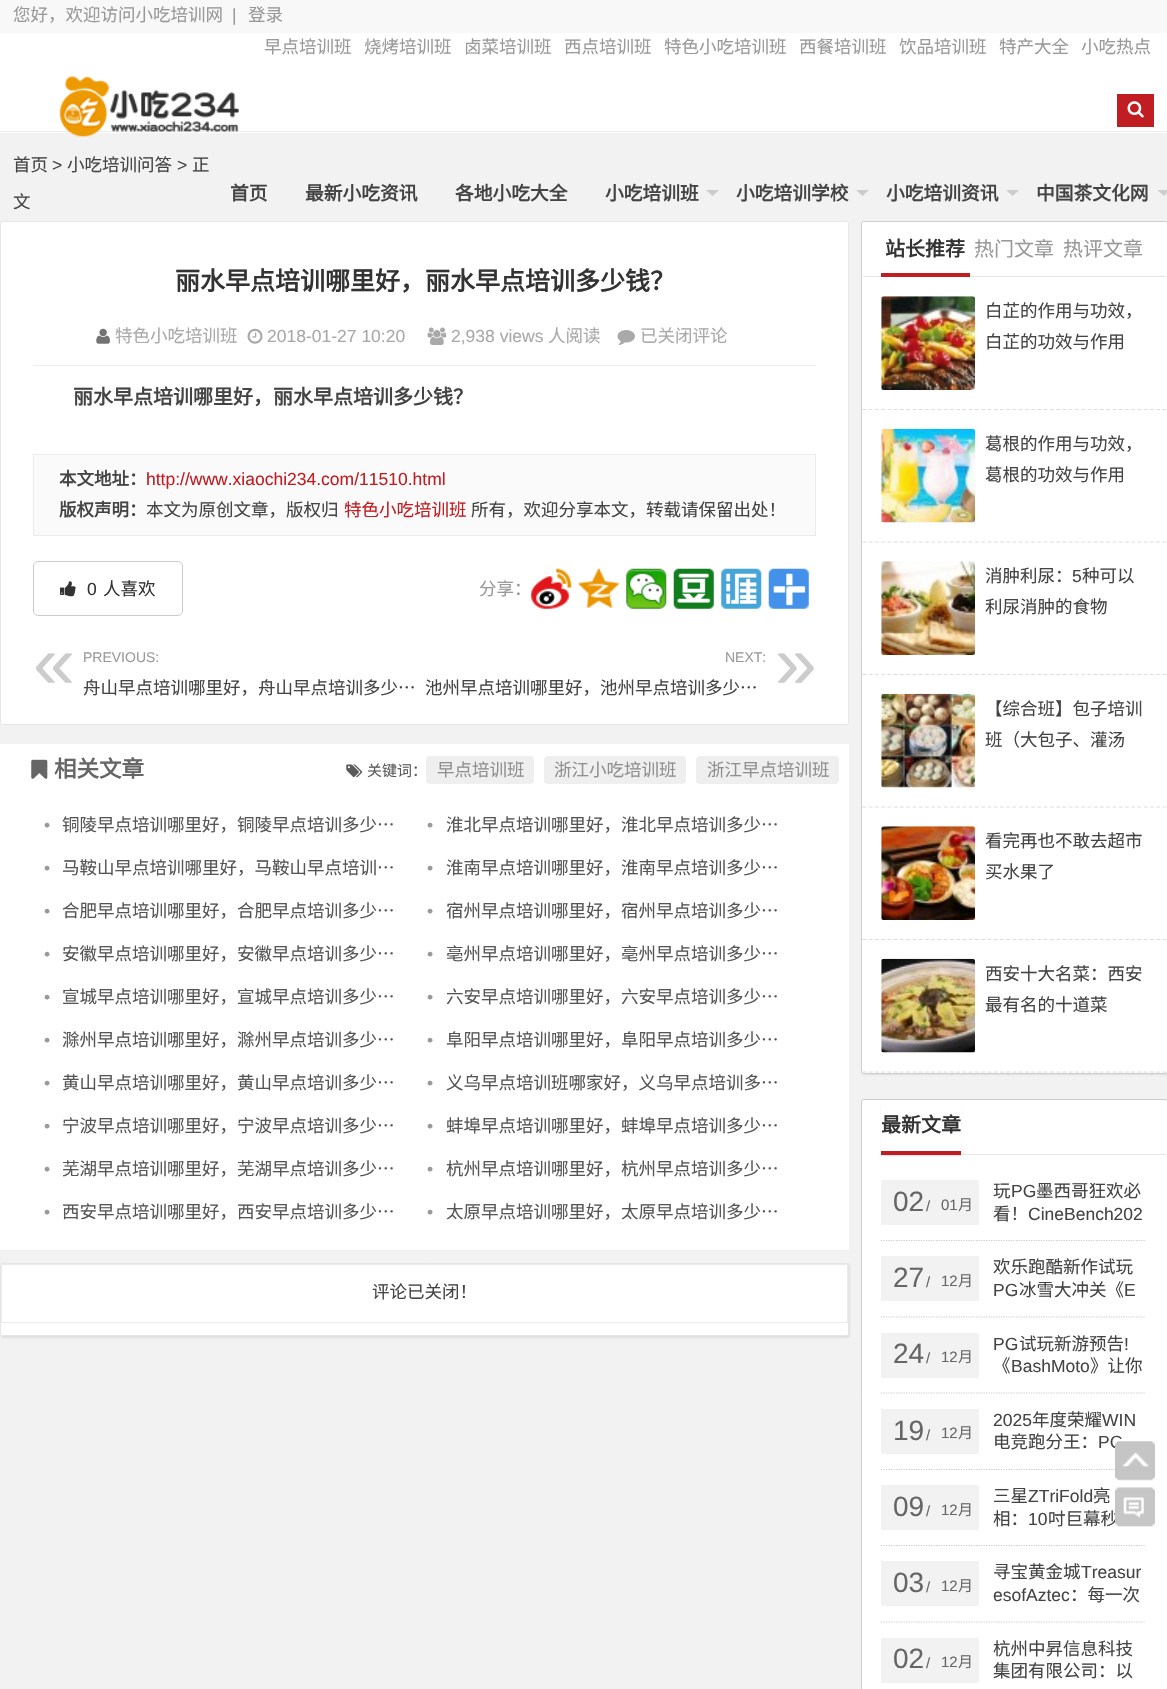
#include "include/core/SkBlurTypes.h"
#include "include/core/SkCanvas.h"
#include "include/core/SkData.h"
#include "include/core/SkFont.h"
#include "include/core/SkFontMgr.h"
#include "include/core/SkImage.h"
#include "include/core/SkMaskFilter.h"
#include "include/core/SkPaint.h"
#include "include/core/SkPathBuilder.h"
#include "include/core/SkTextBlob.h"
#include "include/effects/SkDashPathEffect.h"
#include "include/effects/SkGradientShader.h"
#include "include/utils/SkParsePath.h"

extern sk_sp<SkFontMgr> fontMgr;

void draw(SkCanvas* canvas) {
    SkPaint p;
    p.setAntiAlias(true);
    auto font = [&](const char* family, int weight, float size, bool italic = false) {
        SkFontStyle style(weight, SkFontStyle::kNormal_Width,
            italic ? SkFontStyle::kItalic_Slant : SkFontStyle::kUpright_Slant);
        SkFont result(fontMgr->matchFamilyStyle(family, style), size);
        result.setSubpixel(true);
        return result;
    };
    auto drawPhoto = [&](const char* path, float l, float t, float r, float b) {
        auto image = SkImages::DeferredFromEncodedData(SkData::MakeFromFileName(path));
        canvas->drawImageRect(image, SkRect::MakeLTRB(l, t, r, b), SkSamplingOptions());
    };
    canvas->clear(0xFFF2F2F2);
    p.setColor(0xFFF8F8F8);
    canvas->drawRect(SkRect::MakeLTRB(0, 0, 1167, 33), p);
    auto font1 = font("Noto Sans CJK SC", 400, 17.5f);
    p.setColor(0xFF999999);
    canvas->drawString("您好，欢迎访问小吃培训网", 13, 21, font1, p);
    auto font2 = font("Liberation Sans", 400, 17.5f);
    canvas->drawString("|", 232, 21, font2, p);
    canvas->drawString("登录", 248, 21, font1, p);
    p.setColor(0xFFFFFFFF);
    canvas->drawRect(SkRect::MakeLTRB(0, 33, 1167, 133), p);
    p.setColor(0xFF999999);
    {
        const struct { const char* s; float x, y; } items[] = {
            {"早点培训班", 264, 53},
            {"烧烤培训班", 364, 53},
            {"卤菜培训班", 464, 53},
            {"西点培训班", 564, 53},
            {"特色小吃培训班", 664, 53},
            {"西餐培训班", 799, 53},
            {"饮品培训班", 899, 53},
            {"特产大全", 999, 53},
            {"小吃热点", 1081, 53},
        };
        for (auto [s, x, y] : items) {
            canvas->drawString(s, x, y, font1, p);
        }
    }
    p.setColor(0xFFEBEBEB);
    canvas->drawRect(SkRect::MakeLTRB(0, 131, 1167, 132), p);
    drawPhoto("media/1.png", 59, 76, 239, 137);
    p.setColor(0xFFC01E22);
    canvas->drawRect(SkRect::MakeLTRB(1117, 94, 1154, 127), p);
    drawPhoto("media/2.png", 1127, 101, 1144, 118);
    auto font3 = font("Noto Sans CJK SC", 700, 18.75f);
    p.setColor(0xFF444444);
    {
        const struct { const char* s; float x, y; } items[] = {
            {"首页", 230, 200},
            {"最新小吃资讯", 305, 200},
            {"各地小吃大全", 455, 200},
            {"小吃培训班", 605, 200},
        };
        for (auto [s, x, y] : items) {
            canvas->drawString(s, x, y, font3, p);
        }
    }
    p.setColor(0xFFCCCCCC);
    canvas->drawPath(SkPathBuilder().moveTo(706, 190).lineTo(719, 190).lineTo(712.5f, 196).close().detach(), p);
    p.setColor(0xFF444444);
    canvas->drawString("小吃培训学校", 736, 200, font3, p);
    p.setColor(0xFFCCCCCC);
    canvas->drawPath(SkPathBuilder().moveTo(856, 190).lineTo(869, 190).lineTo(862.5f, 196).close().detach(), p);
    p.setColor(0xFF444444);
    canvas->drawString("小吃培训资讯", 886, 200, font3, p);
    p.setColor(0xFFCCCCCC);
    canvas->drawPath(SkPathBuilder().moveTo(1006, 190).lineTo(1019, 190).lineTo(1012.5f, 196).close().detach(), p);
    p.setColor(0xFF444444);
    canvas->drawString("中国茶文化网", 1036, 200, font3, p);
    p.setColor(0xFFCCCCCC);
    canvas->drawPath(SkPathBuilder().moveTo(1157.5f, 190).lineTo(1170, 190).lineTo(1164, 196).close().detach(), p);
    p.setColor(0xFF444444);
    canvas->drawString("首页", 13, 171, font1, p);
    canvas->drawString(">", 52, 171, font2, p);
    canvas->drawString("小吃培训问答", 67, 171, font1, p);
    canvas->drawString(">", 177, 171, font2, p);
    canvas->drawString("正", 192, 171, font1, p);
    canvas->drawString("文", 13, 208, font1, p);
    p.setColor(0xFFFFFFFF);
    canvas->drawRoundRect(SkRect::MakeLTRB(0.5f, 221.5f, 848.5f, 724.5f), 2, 2, p);
    p.setStyle(SkPaint::kStroke_Style);
    p.setStrokeWidth(1);
    p.setColor(0xFFE6E6E6);
    canvas->drawRoundRect(SkRect::MakeLTRB(0.5f, 221.5f, 848.5f, 724.5f), 2, 2, p);
    auto font4 = font("Noto Sans CJK SC", 700, 25);
    p.setStyle(SkPaint::kFill_Style);
    p.setColor(0xFF333333);
    canvas->drawString("丽水早点培训哪里好，丽水早点培训多少钱？", 175, 290, font4, p);
    p.setColor(0xFFEDEDED);
    canvas->drawRect(SkRect::MakeLTRB(33, 365, 816, 366), p);
    drawPhoto("media/3.png", 96, 328, 110, 344);
    p.setColor(0xFFA9A9A9);
    canvas->drawString("特色小吃培训班", 115, 342, font1, p);
    drawPhoto("media/4.png", 247, 328, 263, 344);
    canvas->drawString("2018-01-27 10:20", 267, 342, font2, p);
    drawPhoto("media/5.png", 427, 327, 447, 345);
    canvas->drawString("2,938 views", 451, 342, font2, p);
    canvas->drawString("人阅读", 548, 342, font1, p);
    drawPhoto("media/6.png", 617, 330, 635, 345);
    canvas->drawString("已关闭评论", 640, 342, font1, p);
    auto font5 = font("Noto Sans CJK SC", 700, 20);
    p.setColor(0xFF444444);
    canvas->drawString("丽水早点培训哪里好，丽水早点培训多少钱？", 73, 404, font5, p);
    p.setColor(0xFFFAFAFA);
    canvas->drawRect(SkRect::MakeLTRB(33.5f, 454.5f, 815.5f, 535.5f), p);
    p.setStyle(SkPaint::kStroke_Style);
    p.setColor(0xFFECECEC);
    canvas->drawRect(SkRect::MakeLTRB(33.5f, 454.5f, 815.5f, 535.5f), p);
    auto font6 = font("Noto Sans CJK SC", 700, 17.5f);
    p.setStyle(SkPaint::kFill_Style);
    p.setColor(0xFF444444);
    canvas->drawString("本文地址：", 59, 485, font6, p);
    p.setColor(0xFFC01E22);
    canvas->drawString("http://www.xiaochi234.com/11510.html", 146, 485, font2, p);
    p.setColor(0xFF444444);
    canvas->drawString("版权声明：", 59, 516, font6, p);
    canvas->drawString("本文为原创文章，版权归", 146, 516, font1, p);
    p.setColor(0xFFC01E22);
    canvas->drawString("特色小吃培训班", 344, 516, font1, p);
    p.setColor(0xFF444444);
    canvas->drawString("所有，欢迎分享本文，转载请保留出处！", 471, 516, font1, p);
    p.setStyle(SkPaint::kStroke_Style);
    p.setColor(0xFFCCCCCC);
    canvas->drawRoundRect(SkRect::MakeLTRB(33.5f, 561.5f, 182.5f, 615.5f), 4.5f, 4.5f, p);
    drawPhoto("media/7.png", 60, 581, 76, 597);
    p.setStyle(SkPaint::kFill_Style);
    p.setColor(0xFF333333);
    canvas->drawString("0", 87, 595, font2, p);
    canvas->drawString("人喜欢", 103, 595, font1, p);
    p.setColor(0xFF999999);
    canvas->drawString("分享：", 479, 595, font1, p);
    drawPhoto("media/8.png", 531, 568, 572, 609);
    drawPhoto("media/9.png", 578, 568, 619, 608);
    drawPhoto("media/10.png", 626, 568, 667, 609);
    drawPhoto("media/11.png", 673, 568, 714, 609);
    drawPhoto("media/12.png", 721, 568, 762, 609);
    drawPhoto("media/13.png", 768, 568, 809, 609);
    auto font7 = font("Liberation Sans", 400, 75);
    p.setColor(0xFFCCCCCC);
    canvas->drawString("«", 33, 688, font7, p);
    auto font8 = font("Liberation Sans", 400, 14);
    p.setColor(0xFF999999);
    canvas->drawString("PREVIOUS:", 83, 662, font8, p);
    p.setColor(0xFF444444);
    canvas->drawString("舟山早点培训哪里好，舟山早点培训多少…", 83, 694, font1, p);
    p.setColor(0xFF999999);
    canvas->drawString("NEXT:", 725, 662, font8, p);
    p.setColor(0xFFCCCCCC);
    canvas->drawString("»", 775, 688, font7, p);
    p.setColor(0xFF444444);
    canvas->drawString("池州早点培训哪里好，池州早点培训多少…", 425, 694, font1, p);
    p.setColor(0xFFFFFFFF);
    canvas->drawRect(SkRect::MakeLTRB(0, 744, 849, 1250), p);
    drawPhoto("media/14.png", 31, 759, 48, 779);
    auto font9 = font("Noto Sans CJK SC", 700, 22.5f);
    p.setColor(0xFF666666);
    canvas->drawString("相关文章", 54, 777, font9, p);
    drawPhoto("media/15.png", 346, 764, 363, 778);
    auto font10 = font("Noto Sans CJK SC", 400, 15);
    p.setColor(0xFF5B5A5A);
    canvas->drawString("关键词：", 367, 776, font10, p);
    p.setColor(0xFFEFEFEF);
    canvas->drawRoundRect(SkRect::MakeLTRB(426, 756, 534, 784), 4, 4, p);
    p.setColor(0xFF909090);
    canvas->drawString("早点培训班", 437, 776, font1, p);
    p.setColor(0xFFEFEFEF);
    canvas->drawRoundRect(SkRect::MakeLTRB(544, 756, 686, 784), 4, 4, p);
    p.setColor(0xFF909090);
    canvas->drawString("浙江小吃培训班", 554, 776, font1, p);
    p.setColor(0xFFEFEFEF);
    canvas->drawRoundRect(SkRect::MakeLTRB(696, 756, 839, 784), 4, 4, p);
    p.setColor(0xFF909090);
    canvas->drawString("浙江早点培训班", 707, 776, font1, p);
    p.setColor(0xFF999999);
    canvas->drawString("•", 44, 831, font2, p);
    p.setColor(0xFF555555);
    canvas->drawString("铜陵早点培训哪里好，铜陵早点培训多少…", 62, 831, font1, p);
    p.setColor(0xFF999999);
    canvas->drawString("•", 427, 831, font2, p);
    p.setColor(0xFF555555);
    canvas->drawString("淮北早点培训哪里好，淮北早点培训多少…", 446, 831, font1, p);
    p.setColor(0xFF999999);
    canvas->drawString("•", 44, 874, font2, p);
    p.setColor(0xFF555555);
    canvas->drawString("马鞍山早点培训哪里好，马鞍山早点培训…", 62, 874, font1, p);
    p.setColor(0xFF999999);
    canvas->drawString("•", 427, 874, font2, p);
    p.setColor(0xFF555555);
    canvas->drawString("淮南早点培训哪里好，淮南早点培训多少…", 446, 874, font1, p);
    p.setColor(0xFF999999);
    canvas->drawString("•", 44, 917, font2, p);
    p.setColor(0xFF555555);
    canvas->drawString("合肥早点培训哪里好，合肥早点培训多少…", 62, 917, font1, p);
    p.setColor(0xFF999999);
    canvas->drawString("•", 427, 917, font2, p);
    p.setColor(0xFF555555);
    canvas->drawString("宿州早点培训哪里好，宿州早点培训多少…", 446, 917, font1, p);
    p.setColor(0xFF999999);
    canvas->drawString("•", 44, 960, font2, p);
    p.setColor(0xFF555555);
    canvas->drawString("安徽早点培训哪里好，安徽早点培训多少…", 62, 960, font1, p);
    p.setColor(0xFF999999);
    canvas->drawString("•", 427, 960, font2, p);
    p.setColor(0xFF555555);
    canvas->drawString("亳州早点培训哪里好，亳州早点培训多少…", 446, 960, font1, p);
    p.setColor(0xFF999999);
    canvas->drawString("•", 44, 1003, font2, p);
    p.setColor(0xFF555555);
    canvas->drawString("宣城早点培训哪里好，宣城早点培训多少…", 62, 1003, font1, p);
    p.setColor(0xFF999999);
    canvas->drawString("•", 427, 1003, font2, p);
    p.setColor(0xFF555555);
    canvas->drawString("六安早点培训哪里好，六安早点培训多少…", 446, 1003, font1, p);
    p.setColor(0xFF999999);
    canvas->drawString("•", 44, 1046, font2, p);
    p.setColor(0xFF555555);
    canvas->drawString("滁州早点培训哪里好，滁州早点培训多少…", 62, 1046, font1, p);
    p.setColor(0xFF999999);
    canvas->drawString("•", 427, 1046, font2, p);
    p.setColor(0xFF555555);
    canvas->drawString("阜阳早点培训哪里好，阜阳早点培训多少…", 446, 1046, font1, p);
    p.setColor(0xFF999999);
    canvas->drawString("•", 44, 1089, font2, p);
    p.setColor(0xFF555555);
    canvas->drawString("黄山早点培训哪里好，黄山早点培训多少…", 62, 1089, font1, p);
    p.setColor(0xFF999999);
    canvas->drawString("•", 427, 1089, font2, p);
    p.setColor(0xFF555555);
    canvas->drawString("义乌早点培训班哪家好，义乌早点培训多…", 446, 1089, font1, p);
    p.setColor(0xFF999999);
    canvas->drawString("•", 44, 1132, font2, p);
    p.setColor(0xFF555555);
    canvas->drawString("宁波早点培训哪里好，宁波早点培训多少…", 62, 1132, font1, p);
    p.setColor(0xFF999999);
    canvas->drawString("•", 427, 1132, font2, p);
    p.setColor(0xFF555555);
    canvas->drawString("蚌埠早点培训哪里好，蚌埠早点培训多少…", 446, 1132, font1, p);
    p.setColor(0xFF999999);
    canvas->drawString("•", 44, 1175, font2, p);
    p.setColor(0xFF555555);
    canvas->drawString("芜湖早点培训哪里好，芜湖早点培训多少…", 62, 1175, font1, p);
    p.setColor(0xFF999999);
    canvas->drawString("•", 427, 1175, font2, p);
    p.setColor(0xFF555555);
    canvas->drawString("杭州早点培训哪里好，杭州早点培训多少…", 446, 1175, font1, p);
    p.setColor(0xFF999999);
    canvas->drawString("•", 44, 1218, font2, p);
    p.setColor(0xFF555555);
    canvas->drawString("西安早点培训哪里好，西安早点培训多少…", 62, 1218, font1, p);
    p.setColor(0xFF999999);
    canvas->drawString("•", 427, 1218, font2, p);
    p.setColor(0xFF555555);
    canvas->drawString("太原早点培训哪里好，太原早点培训多少…", 446, 1218, font1, p);
    p.setColor(0xFFE2DEDE);
    p.setMaskFilter(SkMaskFilter::MakeBlur(kNormal_SkBlurStyle, 1));
    canvas->drawRoundRect(SkRect::MakeLTRB(1, 1264, 850, 1338), 2.5f, 2.5f, p);
    p.setMaskFilter(nullptr);
    p.setColor(0xFFFFFFFF);
    canvas->drawRoundRect(SkRect::MakeLTRB(0.5f, 1263.5f, 848.5f, 1335.5f), 2, 2, p);
    p.setStyle(SkPaint::kStroke_Style);
    p.setColor(0xFFE6E6E6);
    canvas->drawRoundRect(SkRect::MakeLTRB(0.5f, 1263.5f, 848.5f, 1335.5f), 2, 2, p);
    p.setColor(0xFFEBEBEB);
    canvas->drawRect(SkRect::MakeLTRB(1.5f, 1264.5f, 847.5f, 1322.5f), p);
    p.setStyle(SkPaint::kFill_Style);
    p.setColor(0xFF444444);
    canvas->drawString("评论已关闭！", 372, 1298, font1, p);
    p.setColor(0xFFE2DEDE);
    p.setMaskFilter(SkMaskFilter::MakeBlur(kNormal_SkBlurStyle, 1));
    canvas->drawRoundRect(SkRect::MakeLTRB(863, 223, 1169, 1075), 2.5f, 2.5f, p);
    p.setMaskFilter(nullptr);
    p.setColor(0xFFFFFFFF);
    canvas->drawRoundRect(SkRect::MakeLTRB(861.5f, 221.5f, 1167.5f, 1073.5f), 2, 2, p);
    p.setStyle(SkPaint::kStroke_Style);
    p.setColor(0xFFCDCDCD);
    canvas->drawRoundRect(SkRect::MakeLTRB(861.5f, 221.5f, 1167.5f, 1073.5f), 2, 2, p);
    p.setStyle(SkPaint::kFill_Style);
    p.setColor(0xFFE5E5E5);
    canvas->drawRect(SkRect::MakeLTRB(863, 276, 1166, 277), p);
    p.setColor(0xFFC01E22);
    canvas->drawRect(SkRect::MakeLTRB(881, 273, 970, 277), p);
    p.setColor(0xFF333333);
    canvas->drawString("站长推荐", 885, 256, font5, p);
    auto font11 = font("Noto Sans CJK SC", 400, 20);
    p.setColor(0xFF999999);
    canvas->drawString("热门文章", 974, 256, font11, p);
    canvas->drawString("热评文章", 1063, 256, font11, p);
    p.setStyle(SkPaint::kStroke_Style);
    p.setStrokeWidth(1.2f);
    p.setColor(0xFFDDDDDD);
    p.setPathEffect(SkDashPathEffect::Make({{3.75f, 2.5f}}, 0));
    canvas->drawPath(SkPathBuilder().moveTo(862.5f, 409.5f).lineTo(1166, 409.5f).detach(), p);
    p.setPathEffect(nullptr);
    drawPhoto("media/16.png", 881, 296, 975, 390);
    p.setStyle(SkPaint::kFill_Style);
    p.setColor(0xFF444444);
    canvas->drawString("白芷的作用与功效，", 985, 317, font1, p);
    canvas->drawString("白芷的功效与作用", 985, 348, font1, p);
    p.setStyle(SkPaint::kStroke_Style);
    p.setColor(0xFFDDDDDD);
    p.setPathEffect(SkDashPathEffect::Make({{3.75f, 2.5f}}, 0));
    canvas->drawPath(SkPathBuilder().moveTo(862.5f, 542).lineTo(1166, 542).detach(), p);
    p.setPathEffect(nullptr);
    drawPhoto("media/17.png", 881, 428, 975, 523);
    p.setStyle(SkPaint::kFill_Style);
    p.setColor(0xFF444444);
    canvas->drawString("葛根的作用与功效，", 985, 450, font1, p);
    canvas->drawString("葛根的功效与作用", 985, 481, font1, p);
    p.setStyle(SkPaint::kStroke_Style);
    p.setColor(0xFFDDDDDD);
    p.setPathEffect(SkDashPathEffect::Make({{3.75f, 2.5f}}, 0));
    canvas->drawPath(SkPathBuilder().moveTo(862.5f, 674.5f).lineTo(1166, 674.5f).detach(), p);
    p.setPathEffect(nullptr);
    drawPhoto("media/18.png", 881, 561, 975, 655);
    p.setStyle(SkPaint::kFill_Style);
    p.setColor(0xFF444444);
    canvas->drawString("消肿利尿：", 985, 582, font1, p);
    canvas->drawString("5", 1072, 582, font2, p);
    canvas->drawString("种可以", 1082, 582, font1, p);
    canvas->drawString("利尿消肿的食物", 985, 613, font1, p);
    p.setStyle(SkPaint::kStroke_Style);
    p.setColor(0xFFDDDDDD);
    p.setPathEffect(SkDashPathEffect::Make({{3.75f, 2.5f}}, 0));
    canvas->drawPath(SkPathBuilder().moveTo(862.5f, 807).lineTo(1166, 807).detach(), p);
    p.setPathEffect(nullptr);
    drawPhoto("media/19.png", 881, 693, 975, 788);
    p.setStyle(SkPaint::kFill_Style);
    p.setColor(0xFF444444);
    canvas->drawString("【综合班】包子培训", 985, 715, font1, p);
    canvas->drawString("班（大包子、灌汤", 985, 746, font1, p);
    p.setStyle(SkPaint::kStroke_Style);
    p.setColor(0xFFDDDDDD);
    p.setPathEffect(SkDashPathEffect::Make({{3.75f, 2.5f}}, 0));
    canvas->drawPath(SkPathBuilder().moveTo(862.5f, 939.5f).lineTo(1166, 939.5f).detach(), p);
    p.setPathEffect(nullptr);
    drawPhoto("media/20.png", 881, 826, 975, 920);
    p.setStyle(SkPaint::kFill_Style);
    p.setColor(0xFF444444);
    canvas->drawString("看完再也不敢去超市", 985, 847, font1, p);
    canvas->drawString("买水果了", 985, 878, font1, p);
    p.setStyle(SkPaint::kStroke_Style);
    p.setColor(0xFFDDDDDD);
    p.setPathEffect(SkDashPathEffect::Make({{3.75f, 2.5f}}, 0));
    canvas->drawPath(SkPathBuilder().moveTo(862.5f, 1072).lineTo(1166, 1072).detach(), p);
    p.setPathEffect(nullptr);
    drawPhoto("media/21.png", 881, 958, 975, 1053);
    p.setStyle(SkPaint::kFill_Style);
    p.setColor(0xFF444444);
    canvas->drawString("西安十大名菜：西安", 985, 980, font1, p);
    canvas->drawString("最有名的十道菜", 985, 1011, font1, p);
    p.setColor(0xFFE2DEDE);
    p.setMaskFilter(SkMaskFilter::MakeBlur(kNormal_SkBlurStyle, 1));
    canvas->drawRoundRect(SkRect::MakeLTRB(863, 1100, 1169, 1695), 2.5f, 2.5f, p);
    p.setMaskFilter(nullptr);
    p.setColor(0xFFFFFFFF);
    canvas->drawRoundRect(SkRect::MakeLTRB(861.5f, 1099.5f, 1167.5f, 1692.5f), 2, 2, p);
    p.setStyle(SkPaint::kStroke_Style);
    p.setStrokeWidth(1);
    p.setColor(0xFFCDCDCD);
    canvas->drawRoundRect(SkRect::MakeLTRB(861.5f, 1099.5f, 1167.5f, 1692.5f), 2, 2, p);
    p.setStyle(SkPaint::kFill_Style);
    p.setColor(0xFFE6E6E6);
    canvas->drawRect(SkRect::MakeLTRB(961, 1154, 1166, 1155), p);
    canvas->save();
    canvas->clipPath(SkPathBuilder(SkPathFillType::kEvenOdd).moveTo(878, 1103).lineTo(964, 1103).lineTo(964, 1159).lineTo(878, 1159).close().moveTo(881, 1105).lineTo(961, 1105).lineTo(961, 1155).lineTo(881, 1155).close().detach(), true);
    p.setColor(0x1A000000);
    p.setMaskFilter(SkMaskFilter::MakeBlur(kNormal_SkBlurStyle, 0.5f));
    canvas->drawRect(SkRect::MakeLTRB(881, 1106, 961, 1156), p);
    p.setMaskFilter(nullptr);
    canvas->restore();
    p.setColor(0xFFC01E22);
    canvas->drawRect(SkRect::MakeLTRB(881, 1151, 961, 1155), p);
    p.setColor(0xFF333333);
    canvas->drawString("最新文章", 881, 1132, font5, p);
    p.setStyle(SkPaint::kStroke_Style);
    p.setStrokeWidth(1.2f);
    p.setColor(0xFFCBCBCB);
    p.setPathEffect(SkDashPathEffect::Make({{1.25f, 1.25f}}, 0));
    canvas->drawPath(SkPathBuilder().moveTo(881, 1240.5f).lineTo(1145, 1240.5f).detach(), p);
    p.setPathEffect(nullptr);
    p.setStyle(SkPaint::kFill_Style);
    p.setColor(0xFFF2F2F2);
    canvas->drawRect(SkRect::MakeLTRB(881, 1180, 979, 1225), p);
    auto font12 = font("Liberation Sans", 400, 28);
    p.setColor(0xFF666666);
    canvas->drawString("02", 893, 1211, font12, p);
    auto font13 = font("Liberation Sans", 400, 15);
    canvas->drawString("/", 926, 1211, font13, p);
    canvas->drawString("01", 941, 1210, font13, p);
    canvas->drawString("月", 958, 1210, font10, p);
    p.setColor(0xFF444444);
    canvas->drawString("玩", 993, 1197, font1, p);
    canvas->drawString("PG", 1011, 1197, font2, p);
    canvas->drawString("墨西哥狂欢必", 1036, 1197, font1, p);
    canvas->drawString("看！", 993, 1220, font1, p);
    canvas->drawString("CineBench202", 1028, 1220, font2, p);
    p.setStyle(SkPaint::kStroke_Style);
    p.setColor(0xFFCBCBCB);
    p.setPathEffect(SkDashPathEffect::Make({{1.25f, 1.25f}}, 0));
    canvas->drawPath(SkPathBuilder().moveTo(881, 1317).lineTo(1145, 1317).detach(), p);
    p.setPathEffect(nullptr);
    p.setStyle(SkPaint::kFill_Style);
    p.setColor(0xFFF2F2F2);
    canvas->drawRect(SkRect::MakeLTRB(881, 1256, 979, 1301), p);
    p.setColor(0xFF666666);
    canvas->drawString("27", 893, 1287, font12, p);
    canvas->drawString("/", 926, 1287, font13, p);
    canvas->drawString("12", 941, 1286, font13, p);
    canvas->drawString("月", 958, 1286, font10, p);
    p.setColor(0xFF444444);
    canvas->drawString("欢乐跑酷新作试玩", 993, 1273, font1, p);
    canvas->drawString("PG", 993, 1296, font2, p);
    canvas->drawString("冰雪大冲关《", 1019, 1296, font1, p);
    canvas->drawString("E", 1124, 1296, font2, p);
    p.setStyle(SkPaint::kStroke_Style);
    p.setColor(0xFFCBCBCB);
    p.setPathEffect(SkDashPathEffect::Make({{1.25f, 1.25f}}, 0));
    canvas->drawPath(SkPathBuilder().moveTo(881, 1393).lineTo(1145, 1393).detach(), p);
    p.setPathEffect(nullptr);
    p.setStyle(SkPaint::kFill_Style);
    p.setColor(0xFFF2F2F2);
    canvas->drawRect(SkRect::MakeLTRB(881, 1333, 979, 1378), p);
    p.setColor(0xFF666666);
    canvas->drawString("24", 893, 1363, font12, p);
    canvas->drawString("/", 926, 1363, font13, p);
    canvas->drawString("12", 941, 1362, font13, p);
    canvas->drawString("月", 958, 1362, font10, p);
    p.setColor(0xFF444444);
    canvas->drawString("PG", 993, 1350, font2, p);
    canvas->drawString("试玩新游预告", 1019, 1350, font1, p);
    canvas->drawString("!", 1124, 1350, font2, p);
    canvas->drawString("《", 993, 1372, font1, p);
    canvas->drawString("BashMoto", 1011, 1372, font2, p);
    canvas->drawString("》让你", 1090, 1372, font1, p);
    p.setStyle(SkPaint::kStroke_Style);
    p.setColor(0xFFCBCBCB);
    p.setPathEffect(SkDashPathEffect::Make({{1.25f, 1.25f}}, 0));
    canvas->drawPath(SkPathBuilder().moveTo(881, 1469.5f).lineTo(1145, 1469.5f).detach(), p);
    p.setPathEffect(nullptr);
    p.setStyle(SkPaint::kFill_Style);
    p.setColor(0xFFF2F2F2);
    canvas->drawRect(SkRect::MakeLTRB(881, 1409, 979, 1454), p);
    p.setColor(0xFF666666);
    canvas->drawString("19", 893, 1440, font12, p);
    canvas->drawString("/", 926, 1440, font13, p);
    canvas->drawString("12", 941, 1438, font13, p);
    canvas->drawString("月", 958, 1438, font10, p);
    p.setColor(0xFF444444);
    canvas->drawString("2025", 993, 1426, font2, p);
    canvas->drawString("年度荣耀", 1032, 1426, font1, p);
    canvas->drawString("WIN", 1102, 1426, font2, p);
    canvas->drawString("电竞跑分王：", 993, 1448, font1, p);
    canvas->drawString("PG", 1098, 1448, font2, p);
    p.setStyle(SkPaint::kStroke_Style);
    p.setColor(0xFFCBCBCB);
    p.setPathEffect(SkDashPathEffect::Make({{1.25f, 1.25f}}, 0));
    canvas->drawPath(SkPathBuilder().moveTo(881, 1545.5f).lineTo(1145, 1545.5f).detach(), p);
    p.setPathEffect(nullptr);
    p.setStyle(SkPaint::kFill_Style);
    p.setColor(0xFFF2F2F2);
    canvas->drawRect(SkRect::MakeLTRB(881, 1485, 979, 1530), p);
    p.setColor(0xFF666666);
    canvas->drawString("09", 893, 1516, font12, p);
    canvas->drawString("/", 926, 1516, font13, p);
    canvas->drawString("12", 941, 1515, font13, p);
    canvas->drawString("月", 958, 1515, font10, p);
    p.setColor(0xFF444444);
    canvas->drawString("三星", 993, 1502, font1, p);
    canvas->drawString("ZTriFold", 1028, 1502, font2, p);
    canvas->drawString("亮", 1093, 1502, font1, p);
    canvas->drawString("相：", 993, 1525, font1, p);
    canvas->drawString("10", 1028, 1525, font2, p);
    canvas->drawString("吋巨幕秒", 1048, 1525, font1, p);
    p.setStyle(SkPaint::kStroke_Style);
    p.setColor(0xFFCBCBCB);
    p.setPathEffect(SkDashPathEffect::Make({{1.25f, 1.25f}}, 0));
    canvas->drawPath(SkPathBuilder().moveTo(881, 1622).lineTo(1145, 1622).detach(), p);
    p.setPathEffect(nullptr);
    p.setStyle(SkPaint::kFill_Style);
    p.setColor(0xFFF2F2F2);
    canvas->drawRect(SkRect::MakeLTRB(881, 1561, 979, 1606), p);
    p.setColor(0xFF666666);
    canvas->drawString("03", 893, 1592, font12, p);
    canvas->drawString("/", 926, 1592, font13, p);
    canvas->drawString("12", 941, 1591, font13, p);
    canvas->drawString("月", 958, 1591, font10, p);
    p.setColor(0xFF444444);
    canvas->drawString("寻宝黄金城", 993, 1578, font1, p);
    canvas->drawString("Treasur", 1081, 1578, font2, p);
    canvas->drawString("esofAztec", 993, 1601, font2, p);
    canvas->drawString("：每一次", 1070, 1601, font1, p);
    p.setColor(0xFFF2F2F2);
    canvas->drawRect(SkRect::MakeLTRB(881, 1638, 979, 1683), p);
    p.setColor(0xFF666666);
    canvas->drawString("02", 893, 1668, font12, p);
    canvas->drawString("/", 926, 1668, font13, p);
    canvas->drawString("12", 941, 1667, font13, p);
    canvas->drawString("月", 958, 1667, font10, p);
    p.setColor(0xFF444444);
    canvas->drawString("杭州中昇信息科技", 993, 1655, font1, p);
    canvas->drawString("集团有限公司：以", 993, 1677, font1, p);
    drawPhoto("media/22.png", 1115, 1441, 1155, 1481);
    drawPhoto("media/23.png", 1115, 1487, 1155, 1527);
}
